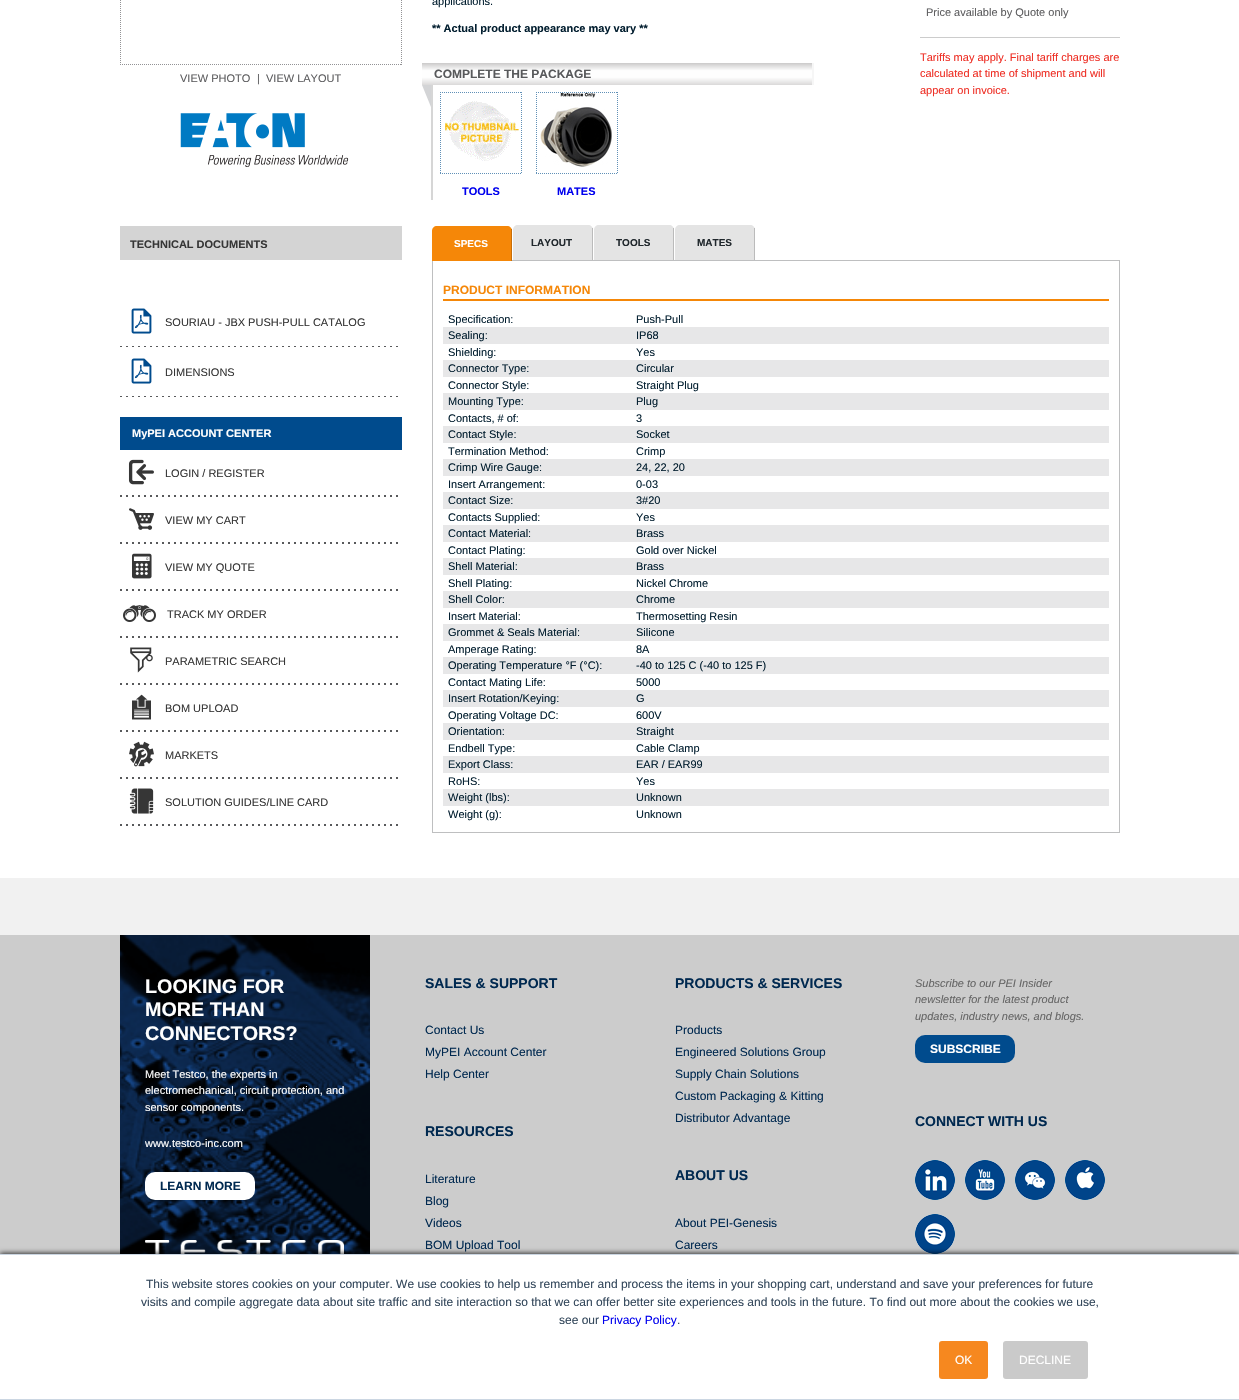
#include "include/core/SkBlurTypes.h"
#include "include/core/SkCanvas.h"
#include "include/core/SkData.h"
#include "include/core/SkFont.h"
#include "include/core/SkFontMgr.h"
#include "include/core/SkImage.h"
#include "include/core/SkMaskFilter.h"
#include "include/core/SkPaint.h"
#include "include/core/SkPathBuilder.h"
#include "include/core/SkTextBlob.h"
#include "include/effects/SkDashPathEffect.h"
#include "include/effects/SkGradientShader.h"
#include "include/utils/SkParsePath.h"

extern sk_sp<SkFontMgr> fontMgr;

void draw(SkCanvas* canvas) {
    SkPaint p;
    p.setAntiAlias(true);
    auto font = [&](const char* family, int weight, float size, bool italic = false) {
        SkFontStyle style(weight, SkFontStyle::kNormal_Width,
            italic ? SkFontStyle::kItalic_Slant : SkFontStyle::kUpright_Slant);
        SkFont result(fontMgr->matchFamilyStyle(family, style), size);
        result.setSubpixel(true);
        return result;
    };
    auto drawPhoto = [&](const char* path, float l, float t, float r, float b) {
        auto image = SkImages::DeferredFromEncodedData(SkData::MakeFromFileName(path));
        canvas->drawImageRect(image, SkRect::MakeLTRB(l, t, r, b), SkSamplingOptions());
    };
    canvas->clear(0xFFFFFFFF);
    p.setStyle(SkPaint::kStroke_Style);
    p.setStrokeWidth(1);
    p.setColor(0xFF929295);
    p.setPathEffect(SkDashPathEffect::Make({{1, 1}}, 0));
    canvas->drawPath(SkPathBuilder().moveTo(401.5f, -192).lineTo(401.5f, 65).detach(), p);
    p.setPathEffect(nullptr);
    p.setPathEffect(SkDashPathEffect::Make({{1, 1}}, 0));
    canvas->drawPath(SkPathBuilder().moveTo(120, 64.5f).lineTo(402, 64.5f).detach(), p);
    p.setPathEffect(nullptr);
    p.setPathEffect(SkDashPathEffect::Make({{1, 1}}, 0));
    canvas->drawPath(SkPathBuilder().moveTo(120.5f, -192).lineTo(120.5f, 65).detach(), p);
    p.setPathEffect(nullptr);
    auto font1 = font("Liberation Sans", 400, 11);
    p.setStyle(SkPaint::kFill_Style);
    p.setColor(0xFF5E5E60);
    {
        const struct { const char* s; float x, y; } items[] = {
            {"VIEW PHOTO", 180, 82},
            {"|", 257, 82},
            {"VIEW LAYOUT", 266, 82},
        };
        for (auto [s, x, y] : items) {
            canvas->drawString(s, x, y, font1, p);
        }
    }
    drawPhoto("media/1.png", 180, 113, 349, 167);
    p.setColor(0xFFD4D4D4);
    canvas->drawRect(SkRect::MakeLTRB(120, 226, 402, 260), p);
    auto font2 = font("Liberation Sans", 700, 11);
    p.setColor(0xFF363636);
    canvas->drawString("TECHNICAL DOCUMENTS", 130, 248, font2, p);
    drawPhoto("media/2.png", 120, 346, 398, 347);
    drawPhoto("media/3.png", 131, 308, 152, 334);
    canvas->drawString("SOURIAU - JBX PUSH-PULL CATALOG", 165, 326, font1, p);
    drawPhoto("media/2.png", 120, 396, 398, 397);
    drawPhoto("media/3.png", 131, 358, 152, 384);
    canvas->drawString("DIMENSIONS", 165, 376, font1, p);
    p.setColor(0xFF004B8D);
    canvas->drawRect(SkRect::MakeLTRB(120, 417, 402, 450), p);
    p.setColor(0xFFFFFFFF);
    canvas->drawString("MyPEI ACCOUNT CENTER", 132, 437, font2, p);
    drawPhoto("media/4.png", 120, 495, 398, 497);
    drawPhoto("media/5.png", 128, 459, 154, 485);
    p.setColor(0xFF363636);
    canvas->drawString("LOGIN / REGISTER", 165, 477, font1, p);
    drawPhoto("media/4.png", 120, 542, 398, 544);
    drawPhoto("media/6.png", 129, 508, 154, 530);
    canvas->drawString("VIEW MY CART", 165, 524, font1, p);
    drawPhoto("media/4.png", 120, 589, 398, 591);
    drawPhoto("media/7.png", 132, 553, 152, 579);
    canvas->drawString("VIEW MY QUOTE", 165, 571, font1, p);
    drawPhoto("media/4.png", 120, 636, 398, 638);
    drawPhoto("media/8.png", 123, 605, 156, 622);
    canvas->drawString("TRACK MY ORDER", 167, 618, font1, p);
    drawPhoto("media/4.png", 120, 683, 398, 685);
    drawPhoto("media/9.png", 130, 647, 153, 673);
    canvas->drawString("PARAMETRIC SEARCH", 165, 665, font1, p);
    drawPhoto("media/4.png", 120, 730, 398, 732);
    drawPhoto("media/10.png", 132, 694, 151, 720);
    canvas->drawString("BOM UPLOAD", 165, 712, font1, p);
    drawPhoto("media/4.png", 120, 777, 398, 779);
    drawPhoto("media/11.png", 129, 741, 154, 767);
    canvas->drawString("MARKETS", 165, 759, font1, p);
    drawPhoto("media/4.png", 120, 824, 398, 826);
    drawPhoto("media/12.png", 129, 788, 154, 814);
    canvas->drawString("SOLUTION GUIDES/LINE CARD", 165, 806, font1, p);
    p.setColor(0xFF021E2F);
    canvas->drawString("applications.", 432, 5, font1, p);
    canvas->drawString("** Actual product appearance may vary **", 432, 32, font2, p);
    {
        const SkColor colors[] = {0xFFCBCACA, 0xFFFEFEFE, 0xFFFEFEFE, 0xFFDAD9D9};
        const float stops[] = {0, 0.35f, 0.65f, 1};
        const SkPoint ends[] = {{617, 63}, {617, 85}};
        p.setShader(SkGradientShader::MakeLinear(ends, colors, stops, 4, SkTileMode::kClamp));
        p.setAlpha(255);
    }
    canvas->drawRect(SkRect::MakeLTRB(422, 63, 812, 85), p);
    p.setShader(nullptr);
    p.setColor(0xFFF6F6F6);
    canvas->drawRect(SkRect::MakeLTRB(812, 63, 814, 85), p);
    auto font3 = font("Liberation Sans", 700, 12);
    p.setColor(0xFF58595B);
    canvas->drawString("COMPLETE THE PACKAGE", 434, 78, font3, p);
    p.setColor(0xFFD3D4D6);
    canvas->drawPath(SkPathBuilder().moveTo(422, 85).lineTo(431, 85).lineTo(431, 107).close().detach(), p);
    p.setColor(0xFFD6D6D6);
    canvas->drawRect(SkRect::MakeLTRB(431, 85, 433, 200), p);
    drawPhoto("media/13.png", 445, 101, 519, 161);
    p.setColor(0xFF0000EE);
    canvas->drawString("TOOLS", 462, 195, font2, p);
    p.setStyle(SkPaint::kStroke_Style);
    p.setColor(0xFF6090B7);
    p.setPathEffect(SkDashPathEffect::Make({{1, 1}}, 0));
    canvas->drawPath(SkPathBuilder().moveTo(440, 92.5f).lineTo(522, 92.5f).detach(), p);
    p.setPathEffect(nullptr);
    p.setPathEffect(SkDashPathEffect::Make({{1, 1}}, 0));
    canvas->drawPath(SkPathBuilder().moveTo(521.5f, 92).lineTo(521.5f, 174).detach(), p);
    p.setPathEffect(nullptr);
    p.setPathEffect(SkDashPathEffect::Make({{1, 1}}, 0));
    canvas->drawPath(SkPathBuilder().moveTo(440, 173.5f).lineTo(522, 173.5f).detach(), p);
    p.setPathEffect(nullptr);
    p.setPathEffect(SkDashPathEffect::Make({{1, 1}}, 0));
    canvas->drawPath(SkPathBuilder().moveTo(440.5f, 92).lineTo(440.5f, 174).detach(), p);
    p.setPathEffect(nullptr);
    drawPhoto("media/14.png", 540, 93, 612, 167);
    p.setStyle(SkPaint::kFill_Style);
    p.setColor(0xFF0000EE);
    canvas->drawString("MATES", 557, 195, font2, p);
    p.setStyle(SkPaint::kStroke_Style);
    p.setColor(0xFF6090B7);
    p.setPathEffect(SkDashPathEffect::Make({{1, 1}}, 0));
    canvas->drawPath(SkPathBuilder().moveTo(536, 92.5f).lineTo(618, 92.5f).detach(), p);
    p.setPathEffect(nullptr);
    p.setPathEffect(SkDashPathEffect::Make({{1, 1}}, 0));
    canvas->drawPath(SkPathBuilder().moveTo(617.5f, 92).lineTo(617.5f, 174).detach(), p);
    p.setPathEffect(nullptr);
    p.setPathEffect(SkDashPathEffect::Make({{1, 1}}, 0));
    canvas->drawPath(SkPathBuilder().moveTo(536, 173.5f).lineTo(618, 173.5f).detach(), p);
    p.setPathEffect(nullptr);
    p.setPathEffect(SkDashPathEffect::Make({{1, 1}}, 0));
    canvas->drawPath(SkPathBuilder().moveTo(536.5f, 92).lineTo(536.5f, 174).detach(), p);
    p.setPathEffect(nullptr);
    p.setStyle(SkPaint::kFill_Style);
    p.setColor(0xFFCCCCCC);
    canvas->drawRect(SkRect::MakeLTRB(920, 37, 1120, 38), p);
    p.setColor(0xFF5E5E60);
    canvas->drawString("Price available by Quote only", 926, 16, font1, p);
    p.setColor(0xFFEE2E24);
    {
        const struct { const char* s; float x, y; } items[] = {
            {"Tariffs may apply. Final tariff charges are", 920, 61},
            {"calculated at time of shipment and will", 920, 77},
            {"appear on invoice.", 920, 94},
        };
        for (auto [s, x, y] : items) {
            canvas->drawString(s, x, y, font1, p);
        }
    }
    p.setStyle(SkPaint::kStroke_Style);
    p.setColor(0xFFBEBFC0);
    canvas->drawRect(SkRect::MakeLTRB(432.5f, 260.5f, 1119.5f, 832.5f), p);
    p.setStyle(SkPaint::kFill_Style);
    p.setColor(0xFFF58708);
    canvas->drawPath(SkPathBuilder().moveTo(437, 226).lineTo(507, 226).cubicTo(510, 226, 512, 228, 512, 231).lineTo(512, 261).lineTo(432, 261).lineTo(432, 231).cubicTo(432, 228, 434, 226, 437, 226).close().detach(), p);
    p.setColor(0xFFC76E08);
    canvas->drawRect(SkRect::MakeLTRB(511, 229, 512, 261), p);
    auto font4 = font("Liberation Sans", 700, 10);
    p.setColor(0xFFFFFFFF);
    canvas->drawString("SPECS", 454, 247, font4, p);
    p.setColor(0xFFE4E4E4);
    canvas->drawPath(SkPathBuilder().moveTo(518, 225).lineTo(588, 225).cubicTo(591, 225, 593, 227, 593, 230).lineTo(593, 260).lineTo(513, 260).lineTo(513, 230).cubicTo(513, 227, 515, 225, 518, 225).close().detach(), p);
    p.setColor(0xFFBBBBBB);
    canvas->drawRect(SkRect::MakeLTRB(592, 228, 593, 260), p);
    p.setColor(0xFF20272C);
    canvas->drawString("LAYOUT", 531, 246, font4, p);
    p.setColor(0xFFE4E4E4);
    canvas->drawPath(SkPathBuilder().moveTo(599, 225).lineTo(669, 225).cubicTo(672, 225, 674, 227, 674, 230).lineTo(674, 260).lineTo(594, 260).lineTo(594, 230).cubicTo(594, 227, 596, 225, 599, 225).close().detach(), p);
    p.setColor(0xFFBBBBBB);
    canvas->drawRect(SkRect::MakeLTRB(673, 228, 674, 260), p);
    p.setColor(0xFF20272C);
    canvas->drawString("TOOLS", 616, 246, font4, p);
    p.setColor(0xFFE4E4E4);
    canvas->drawPath(SkPathBuilder().moveTo(680, 225).lineTo(750, 225).cubicTo(753, 225, 755, 227, 755, 230).lineTo(755, 260).lineTo(675, 260).lineTo(675, 230).cubicTo(675, 227, 677, 225, 680, 225).close().detach(), p);
    p.setColor(0xFFBBBBBB);
    canvas->drawRect(SkRect::MakeLTRB(754, 228, 755, 260), p);
    p.setColor(0xFF20272C);
    canvas->drawString("MATES", 697, 246, font4, p);
    p.setColor(0xFFF58708);
    canvas->drawRect(SkRect::MakeLTRB(443, 299, 1109, 301), p);
    canvas->drawString("PRODUCT INFORMATION", 443, 294, font3, p);
    p.setColor(0xFF021E2F);
    canvas->drawString("Specification:", 448, 323, font1, p);
    canvas->drawString("Push-Pull", 636, 323, font1, p);
    p.setColor(0xFFE7E7E8);
    canvas->drawRect(SkRect::MakeLTRB(443, 327, 1109, 344), p);
    p.setColor(0xFF021E2F);
    {
        const struct { const char* s; float x, y; } items[] = {
            {"Sealing:", 448, 339},
            {"IP68", 636, 339},
            {"Shielding:", 448, 356},
            {"Yes", 636, 356},
        };
        for (auto [s, x, y] : items) {
            canvas->drawString(s, x, y, font1, p);
        }
    }
    p.setColor(0xFFE7E7E8);
    canvas->drawRect(SkRect::MakeLTRB(443, 360, 1109, 377), p);
    p.setColor(0xFF021E2F);
    {
        const struct { const char* s; float x, y; } items[] = {
            {"Connector Type:", 448, 372},
            {"Circular", 636, 372},
            {"Connector Style:", 448, 389},
            {"Straight Plug", 636, 389},
        };
        for (auto [s, x, y] : items) {
            canvas->drawString(s, x, y, font1, p);
        }
    }
    p.setColor(0xFFE7E7E8);
    canvas->drawRect(SkRect::MakeLTRB(443, 393, 1109, 410), p);
    p.setColor(0xFF021E2F);
    {
        const struct { const char* s; float x, y; } items[] = {
            {"Mounting Type:", 448, 405},
            {"Plug", 636, 405},
            {"Contacts, # of:", 448, 422},
            {"3", 636, 422},
        };
        for (auto [s, x, y] : items) {
            canvas->drawString(s, x, y, font1, p);
        }
    }
    p.setColor(0xFFE7E7E8);
    canvas->drawRect(SkRect::MakeLTRB(443, 426, 1109, 443), p);
    p.setColor(0xFF021E2F);
    {
        const struct { const char* s; float x, y; } items[] = {
            {"Contact Style:", 448, 438},
            {"Socket", 636, 438},
            {"Termination Method:", 448, 455},
            {"Crimp", 636, 455},
        };
        for (auto [s, x, y] : items) {
            canvas->drawString(s, x, y, font1, p);
        }
    }
    p.setColor(0xFFE7E7E8);
    canvas->drawRect(SkRect::MakeLTRB(443, 459, 1109, 476), p);
    p.setColor(0xFF021E2F);
    {
        const struct { const char* s; float x, y; } items[] = {
            {"Crimp Wire Gauge:", 448, 471},
            {"24, 22, 20", 636, 471},
            {"Insert Arrangement:", 448, 488},
            {"0-03", 636, 488},
        };
        for (auto [s, x, y] : items) {
            canvas->drawString(s, x, y, font1, p);
        }
    }
    p.setColor(0xFFE7E7E8);
    canvas->drawRect(SkRect::MakeLTRB(443, 492, 1109, 509), p);
    p.setColor(0xFF021E2F);
    {
        const struct { const char* s; float x, y; } items[] = {
            {"Contact Size:", 448, 504},
            {"3#20", 636, 504},
            {"Contacts Supplied:", 448, 521},
            {"Yes", 636, 521},
        };
        for (auto [s, x, y] : items) {
            canvas->drawString(s, x, y, font1, p);
        }
    }
    p.setColor(0xFFE7E7E8);
    canvas->drawRect(SkRect::MakeLTRB(443, 525, 1109, 542), p);
    p.setColor(0xFF021E2F);
    {
        const struct { const char* s; float x, y; } items[] = {
            {"Contact Material:", 448, 537},
            {"Brass", 636, 537},
            {"Contact Plating:", 448, 554},
            {"Gold over Nickel", 636, 554},
        };
        for (auto [s, x, y] : items) {
            canvas->drawString(s, x, y, font1, p);
        }
    }
    p.setColor(0xFFE7E7E8);
    canvas->drawRect(SkRect::MakeLTRB(443, 558, 1109, 575), p);
    p.setColor(0xFF021E2F);
    {
        const struct { const char* s; float x, y; } items[] = {
            {"Shell Material:", 448, 570},
            {"Brass", 636, 570},
            {"Shell Plating:", 448, 587},
            {"Nickel Chrome", 636, 587},
        };
        for (auto [s, x, y] : items) {
            canvas->drawString(s, x, y, font1, p);
        }
    }
    p.setColor(0xFFE7E7E8);
    canvas->drawRect(SkRect::MakeLTRB(443, 591, 1109, 608), p);
    p.setColor(0xFF021E2F);
    {
        const struct { const char* s; float x, y; } items[] = {
            {"Shell Color:", 448, 603},
            {"Chrome", 636, 603},
            {"Insert Material:", 448, 620},
            {"Thermosetting Resin", 636, 620},
        };
        for (auto [s, x, y] : items) {
            canvas->drawString(s, x, y, font1, p);
        }
    }
    p.setColor(0xFFE7E7E8);
    canvas->drawRect(SkRect::MakeLTRB(443, 624, 1109, 641), p);
    p.setColor(0xFF021E2F);
    {
        const struct { const char* s; float x, y; } items[] = {
            {"Grommet & Seals Material:", 448, 636},
            {"Silicone", 636, 636},
            {"Amperage Rating:", 448, 653},
            {"8A", 636, 653},
        };
        for (auto [s, x, y] : items) {
            canvas->drawString(s, x, y, font1, p);
        }
    }
    p.setColor(0xFFE7E7E8);
    canvas->drawRect(SkRect::MakeLTRB(443, 657, 1109, 674), p);
    p.setColor(0xFF021E2F);
    {
        const struct { const char* s; float x, y; } items[] = {
            {"Operating Temperature °F (°C):", 448, 669},
            {"-40 to 125 C (-40 to 125 F)", 636, 669},
            {"Contact Mating Life:", 448, 686},
            {"5000", 636, 686},
        };
        for (auto [s, x, y] : items) {
            canvas->drawString(s, x, y, font1, p);
        }
    }
    p.setColor(0xFFE7E7E8);
    canvas->drawRect(SkRect::MakeLTRB(443, 690, 1109, 707), p);
    p.setColor(0xFF021E2F);
    {
        const struct { const char* s; float x, y; } items[] = {
            {"Insert Rotation/Keying:", 448, 702},
            {"G", 636, 702},
            {"Operating Voltage DC:", 448, 719},
            {"600V", 636, 719},
        };
        for (auto [s, x, y] : items) {
            canvas->drawString(s, x, y, font1, p);
        }
    }
    p.setColor(0xFFE7E7E8);
    canvas->drawRect(SkRect::MakeLTRB(443, 723, 1109, 740), p);
    p.setColor(0xFF021E2F);
    {
        const struct { const char* s; float x, y; } items[] = {
            {"Orientation:", 448, 735},
            {"Straight", 636, 735},
            {"Endbell Type:", 448, 752},
            {"Cable Clamp", 636, 752},
        };
        for (auto [s, x, y] : items) {
            canvas->drawString(s, x, y, font1, p);
        }
    }
    p.setColor(0xFFE7E7E8);
    canvas->drawRect(SkRect::MakeLTRB(443, 756, 1109, 773), p);
    p.setColor(0xFF021E2F);
    {
        const struct { const char* s; float x, y; } items[] = {
            {"Export Class:", 448, 768},
            {"EAR / EAR99", 636, 768},
            {"RoHS:", 448, 785},
            {"Yes", 636, 785},
        };
        for (auto [s, x, y] : items) {
            canvas->drawString(s, x, y, font1, p);
        }
    }
    p.setColor(0xFFE7E7E8);
    canvas->drawRect(SkRect::MakeLTRB(443, 789, 1109, 806), p);
    p.setColor(0xFF021E2F);
    {
        const struct { const char* s; float x, y; } items[] = {
            {"Weight (lbs):", 448, 801},
            {"Unknown", 636, 801},
            {"Weight (g):", 448, 818},
            {"Unknown", 636, 818},
        };
        for (auto [s, x, y] : items) {
            canvas->drawString(s, x, y, font1, p);
        }
    }
    p.setColor(0xFFF1F1F1);
    canvas->drawRect(SkRect::MakeLTRB(0, 878, 1239, 935), p);
    p.setColor(0xFFCCCCCC);
    canvas->drawRect(SkRect::MakeLTRB(0, 935, 1239, 1254), p);
    drawPhoto("media/15.png", 120, 935, 370, 1254);
    auto font5 = font("Liberation Sans", 700, 19.75f);
    p.setColor(0xFFFFFFFF);
    {
        const struct { const char* s; float x, y; } items[] = {
            {"LOOKING FOR", 145, 993},
            {"MORE THAN", 145, 1016},
            {"CONNECTORS?", 145, 1040},
        };
        for (auto [s, x, y] : items) {
            canvas->drawString(s, x, y, font5, p);
        }
    }
    {
        const struct { const char* s; float x, y; } items[] = {
            {"Meet Testco, the experts in", 145, 1078},
            {"electromechanical, circuit protection, and", 145, 1094},
            {"sensor components.", 145, 1111},
            {"www.testco-inc.com", 145, 1147},
        };
        for (auto [s, x, y] : items) {
            canvas->drawString(s, x, y, font1, p);
        }
    }
    canvas->drawRoundRect(SkRect::MakeLTRB(145, 1172, 255, 1200), 10, 10, p);
    p.setColor(0xFF002950);
    canvas->drawString("LEARN MORE", 160, 1190, font3, p);
    drawPhoto("media/16.png", 145, 1240, 344, 1254);
    auto font6 = font("Liberation Sans", 700, 14);
    canvas->drawString("SALES & SUPPORT", 425, 988, font6, p);
    auto font7 = font("Liberation Sans", 400, 12);
    {
        const struct { const char* s; float x, y; } items[] = {
            {"Contact Us", 425, 1034},
            {"MyPEI Account Center", 425, 1056},
            {"Help Center", 425, 1078},
        };
        for (auto [s, x, y] : items) {
            canvas->drawString(s, x, y, font7, p);
        }
    }
    canvas->drawString("RESOURCES", 425, 1136, font6, p);
    {
        const struct { const char* s; float x, y; } items[] = {
            {"Literature", 425, 1183},
            {"Blog", 425, 1205},
            {"Videos", 425, 1227},
            {"BOM Upload Tool", 425, 1249},
        };
        for (auto [s, x, y] : items) {
            canvas->drawString(s, x, y, font7, p);
        }
    }
    canvas->drawString("PRODUCTS & SERVICES", 675, 988, font6, p);
    {
        const struct { const char* s; float x, y; } items[] = {
            {"Products", 675, 1034},
            {"Engineered Solutions Group", 675, 1056},
            {"Supply Chain Solutions", 675, 1078},
            {"Custom Packaging & Kitting", 675, 1100},
            {"Distributor Advantage", 675, 1122},
        };
        for (auto [s, x, y] : items) {
            canvas->drawString(s, x, y, font7, p);
        }
    }
    canvas->drawString("ABOUT US", 675, 1180, font6, p);
    canvas->drawString("About PEI-Genesis", 675, 1227, font7, p);
    canvas->drawString("Careers", 675, 1249, font7, p);
    auto font8 = font("Liberation Sans", 400, 11, true);
    p.setColor(0xFF666666);
    {
        const struct { const char* s; float x, y; } items[] = {
            {"Subscribe to our PEI Insider", 915, 987},
            {"newsletter for the latest product", 915, 1003},
            {"updates, industry news, and blogs.", 915, 1020},
        };
        for (auto [s, x, y] : items) {
            canvas->drawString(s, x, y, font8, p);
        }
    }
    p.setColor(0xFF004B8D);
    canvas->drawRoundRect(SkRect::MakeLTRB(915, 1035, 1015, 1063), 10, 10, p);
    p.setColor(0xFFFFFFFF);
    canvas->drawString("SUBSCRIBE", 930, 1053, font3, p);
    p.setColor(0xFF002950);
    canvas->drawString("CONNECT WITH US", 915, 1126, font6, p);
    drawPhoto("media/17.png", 915, 1160, 955, 1200);
    drawPhoto("media/18.png", 965, 1160, 1005, 1200);
    drawPhoto("media/19.png", 1015, 1160, 1055, 1200);
    drawPhoto("media/20.png", 1065, 1160, 1105, 1200);
    drawPhoto("media/21.png", 915, 1214, 955, 1254);
    p.setColor(0xBF000000);
    p.setMaskFilter(SkMaskFilter::MakeBlur(kNormal_SkBlurStyle, 2.5f));
    canvas->drawRect(SkRect::MakeLTRB(0, 1253, 1239, 1399), p);
    p.setMaskFilter(nullptr);
    {
        const struct { float l, t, r, b; SkColor color; } items[] = {
            {0, 1255, 1239, 1399, 0xFFFFFFFF},
            {0, 1254, 1239, 1255, 0xFFCBD6E2},
            {0, 1399, 1239, 1400, 0xFFCBD6E2},
        };
        for (auto [l, t, r, b, color] : items) {
            p.setColor(color);
            canvas->drawRect(SkRect::MakeLTRB(l, t, r, b), p);
        }
    }
    p.setColor(0xFF33475B);
    {
        const struct { const char* s; float x, y; } items[] = {
            {"This website stores cookies on your computer. We use cookies to help us remember and process the items in your shopping cart, understand and save your preferences for future", 146, 1288},
            {"visits and compile aggregate data about site traffic and site interaction so that we can offer better site experiences and tools in the future. To find out more about the cookies we use,", 141, 1306},
            {"see our", 559, 1324},
        };
        for (auto [s, x, y] : items) {
            canvas->drawString(s, x, y, font7, p);
        }
    }
    p.setColor(0xFF0000EE);
    canvas->drawString("Privacy Policy", 602, 1324, font7, p);
    p.setColor(0xFF33475B);
    canvas->drawString(".", 677, 1324, font7, p);
    p.setColor(0xFFF6881F);
    canvas->drawRoundRect(SkRect::MakeLTRB(939, 1341, 988, 1379), 3, 3, p);
    p.setColor(0xFFFFFFFF);
    canvas->drawString("OK", 955, 1364, font7, p);
    p.setColor(0xFFCACACA);
    canvas->drawRoundRect(SkRect::MakeLTRB(1003, 1341, 1088, 1379), 3, 3, p);
    p.setColor(0xFFFFFFFF);
    canvas->drawString("DECLINE", 1019, 1364, font7, p);
}
